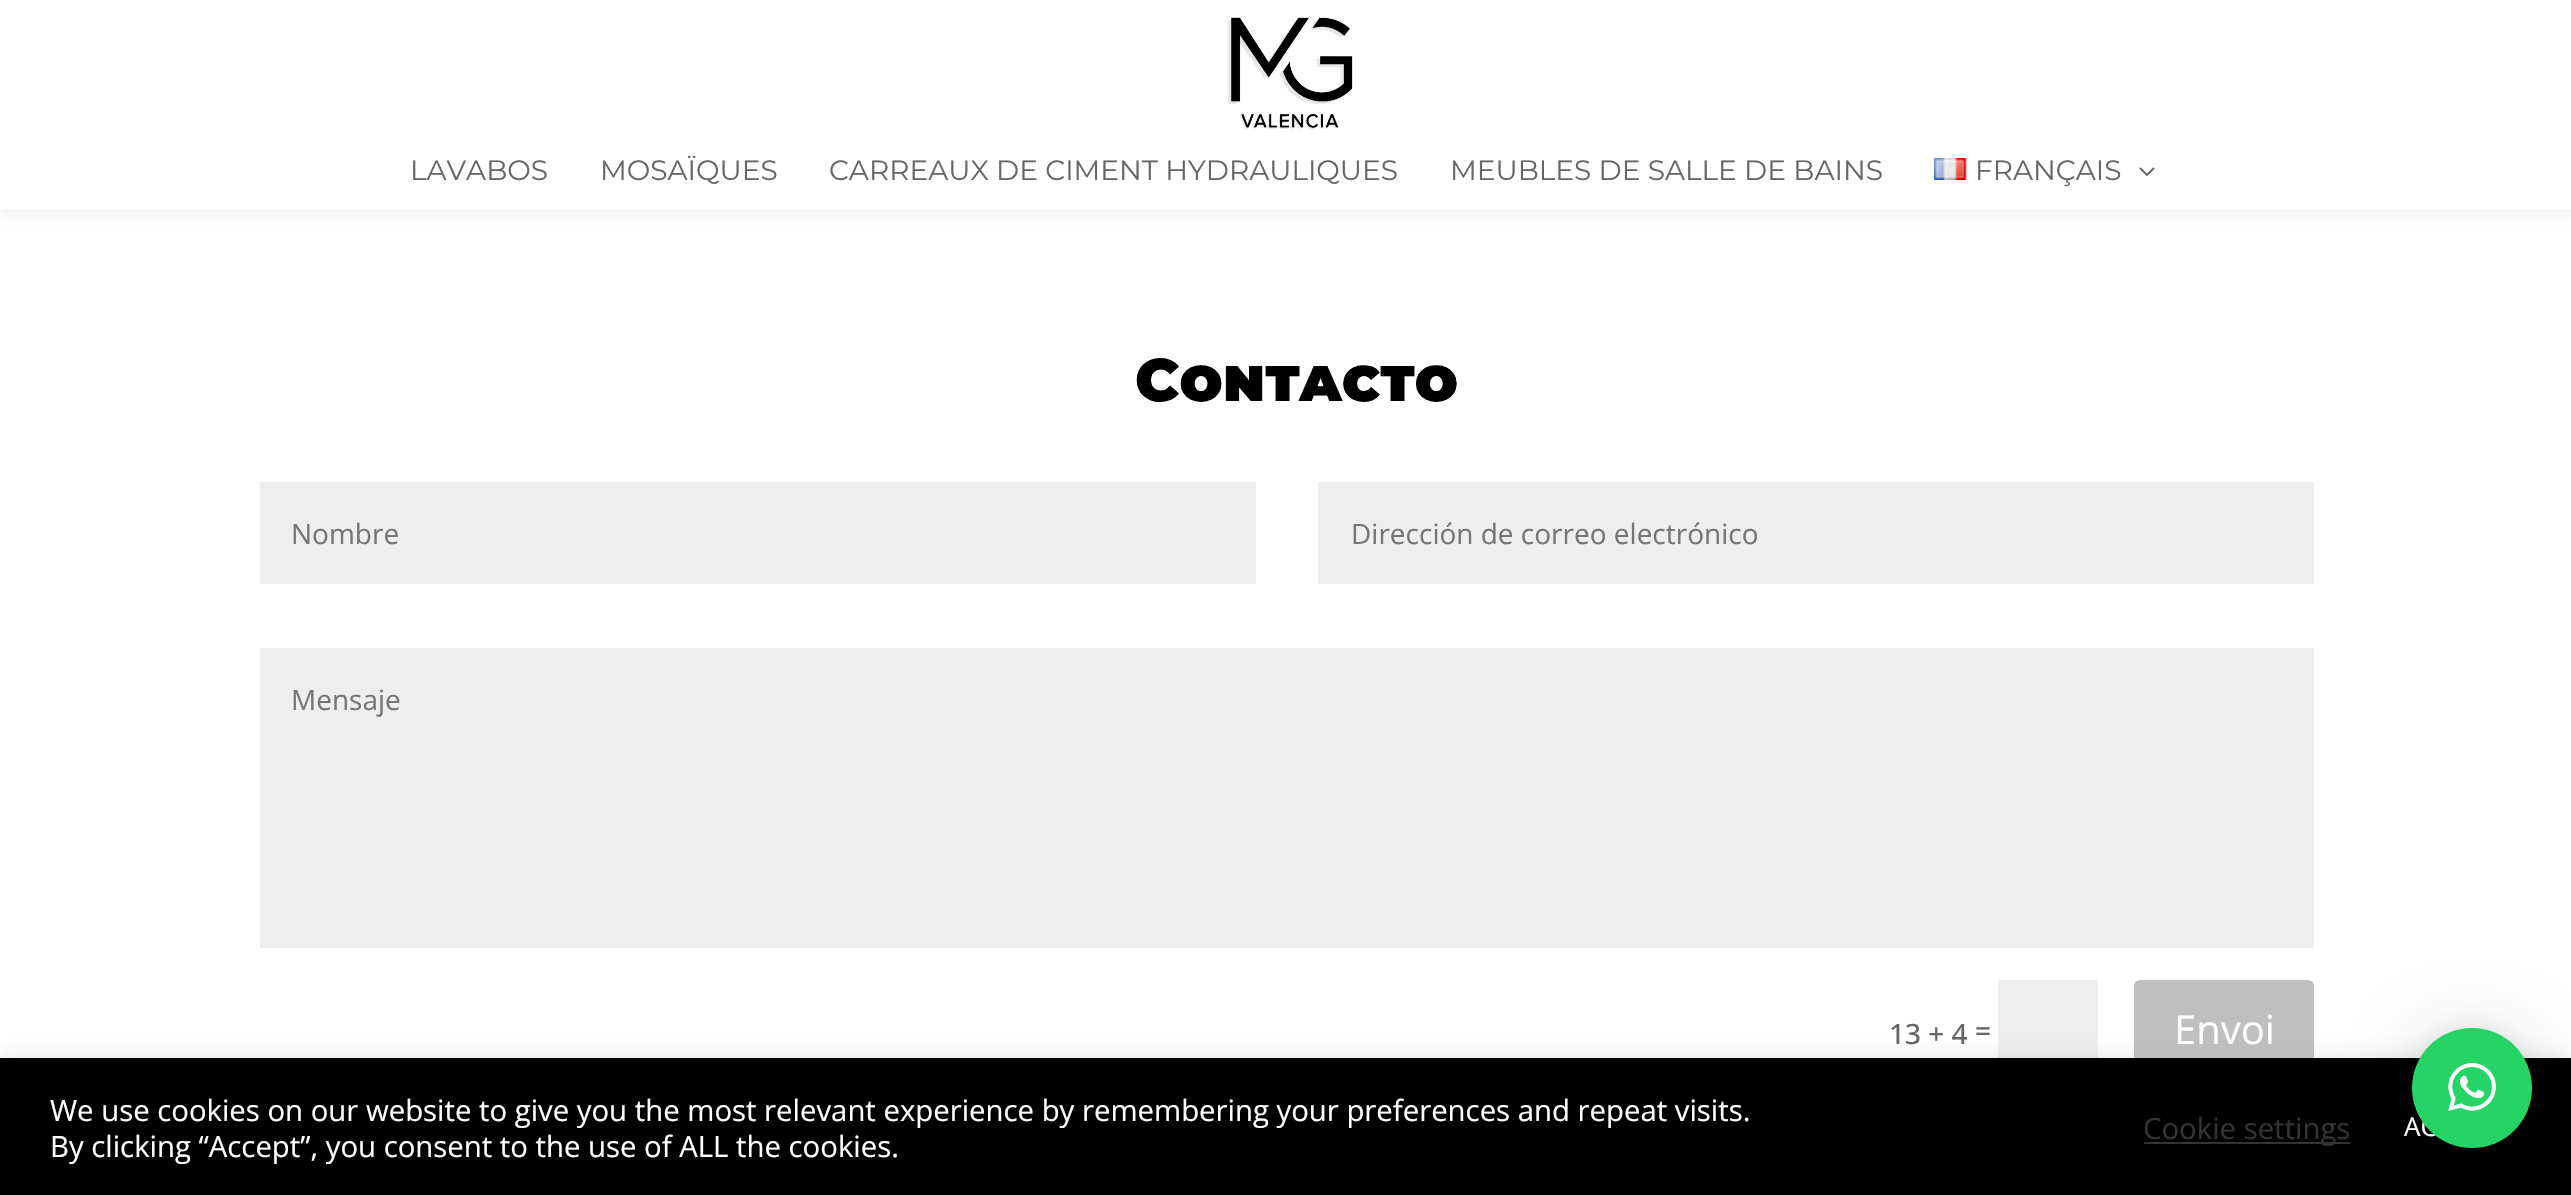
#include "include/core/SkBlurTypes.h"
#include "include/core/SkCanvas.h"
#include "include/core/SkData.h"
#include "include/core/SkFont.h"
#include "include/core/SkFontMgr.h"
#include "include/core/SkImage.h"
#include "include/core/SkMaskFilter.h"
#include "include/core/SkPaint.h"
#include "include/core/SkPathBuilder.h"
#include "include/core/SkTextBlob.h"
#include "include/effects/SkDashPathEffect.h"
#include "include/effects/SkGradientShader.h"
#include "include/utils/SkParsePath.h"

extern sk_sp<SkFontMgr> fontMgr;

void draw(SkCanvas* canvas) {
    SkPaint p;
    p.setAntiAlias(true);
    auto font = [&](const char* family, int weight, float size, bool italic = false) {
        SkFontStyle style(weight, SkFontStyle::kNormal_Width,
            italic ? SkFontStyle::kItalic_Slant : SkFontStyle::kUpright_Slant);
        SkFont result(fontMgr->matchFamilyStyle(family, style), size);
        result.setSubpixel(true);
        return result;
    };
    auto drawPhoto = [&](const char* path, float l, float t, float r, float b) {
        auto image = SkImages::DeferredFromEncodedData(SkData::MakeFromFileName(path));
        canvas->drawImageRect(image, SkRect::MakeLTRB(l, t, r, b), SkSamplingOptions());
    };
    canvas->clear(0xFFFFFFFF);
    p.setColor(0x1A000000);
    p.setMaskFilter(SkMaskFilter::MakeBlur(kNormal_SkBlurStyle, 7));
    canvas->drawRect(SkRect::MakeLTRB(0, 0, 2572, 210), p);
    p.setMaskFilter(nullptr);
    p.setColor(0xFFFFFFFF);
    canvas->drawRect(SkRect::MakeLTRB(0, 0, 2571, 210), p);
    drawPhoto("media/1.png", 1228, 17, 1353, 129);
    auto font1 = font("Montserrat", 400, 28);
    p.setColor(0xFF666666);
    {
        const struct { const char* s; float x, y; } items[] = {
            {"LAVABOS", 410, 180},
            {"MOSAÏQUES", 600, 180},
            {"CARREAUX DE CIMENT HYDRAULIQUES", 829, 180},
            {"MEUBLES DE SALLE DE BAINS", 1450, 180},
        };
        for (auto [s, x, y] : items) {
            canvas->drawString(s, x, y, font1, p);
        }
    }
    drawPhoto("media/2.png", 1934, 158, 1967, 180);
    canvas->drawString("FRANÇAIS", 1975, 180, font1, p);
    drawPhoto("media/3.png", 2139, 167, 2155, 176);
    auto font2 = font("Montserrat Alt", 900, 60);
    p.setColor(0xFF000000);
    canvas->drawString("Contacto", 1135, 401, font2, p);
    p.setColor(0xFFEEEEEE);
    canvas->drawRect(SkRect::MakeLTRB(260, 482, 1256, 584), p);
    auto font3 = font("Open Sans", 400, 28);
    p.setColor(0xFF757575);
    canvas->drawString("Nombre", 291, 544, font3, p);
    p.setColor(0xFFEEEEEE);
    canvas->drawRect(SkRect::MakeLTRB(1318, 482, 2314, 584), p);
    p.setColor(0xFF757575);
    canvas->drawString("Dirección de correo electrónico", 1351, 544, font3, p);
    p.setColor(0xFFEEEEEE);
    canvas->drawRect(SkRect::MakeLTRB(260, 648, 2314, 948), p);
    p.setColor(0xFF757575);
    canvas->drawString("Mensaje", 291, 710, font3, p);
    auto font4 = font("Open Sans", 500, 28);
    p.setColor(0xFF666666);
    canvas->drawString("13 + 4", 1889, 1044, font4, p);
    canvas->drawString("=", 1975, 1041, font4, p);
    p.setColor(0xFFEEEEEE);
    canvas->drawRect(SkRect::MakeLTRB(1998, 980, 2098, 1058), p);
    p.setColor(0xFFBFBFBF);
    canvas->drawRoundRect(SkRect::MakeLTRB(2134, 980, 2314, 1082), 6, 6, p);
    auto font5 = font("Open Sans", 400, 40);
    p.setColor(0xFFFFFFFF);
    canvas->drawString("Envoi", 2174, 1044, font5, p);
    p.setColor(0x4DACABAB);
    p.setMaskFilter(SkMaskFilter::MakeBlur(kNormal_SkBlurStyle, 10));
    canvas->drawRect(SkRect::MakeLTRB(0, 1056, 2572, 1194), p);
    p.setMaskFilter(nullptr);
    p.setColor(0xFF000000);
    canvas->drawRect(SkRect::MakeLTRB(0, 1058, 2571, 1195), p);
    p.setColor(0xFF333333);
    canvas->drawRect(SkRect::MakeLTRB(2144, 1142, 2350, 1144), p);
    p.setColor(0x29000000);
    p.setMaskFilter(SkMaskFilter::MakeBlur(kNormal_SkBlurStyle, 32));
    canvas->drawRoundRect(SkRect::MakeLTRB(2412, 1032, 2532, 1152), 60, 60, p);
    p.setMaskFilter(nullptr);
    p.setColor(0x0F000000);
    p.setMaskFilter(SkMaskFilter::MakeBlur(kNormal_SkBlurStyle, 6));
    canvas->drawRoundRect(SkRect::MakeLTRB(2412, 1030, 2532, 1150), 60, 60, p);
    p.setMaskFilter(nullptr);
    auto font6 = font("Open Sans", 400, 26);
    p.setColor(0xFFFFFFFF);
    canvas->drawString("AC", 2404, 1136, font6, p);
    p.setColor(0xFF25D366);
    canvas->drawCircle(2472, 1088, 60, p);
    drawPhoto("media/4.png", 2448, 1063, 2496, 1111);
    auto font7 = font("Open Sans", 400, 29.33f);
    p.setColor(0xFFFFFFFF);
    canvas->drawString("We use cookies on our website to give you the most relevant experience by remembering your preferences and repeat visits.", 50, 1121, font7, p);
    canvas->drawString("By clicking “Accept”, you consent to the use of ALL the cookies.", 50, 1157, font7, p);
    p.setColor(0xFF333333);
    canvas->drawString("Cookie settings", 2143, 1139, font7, p);
}
